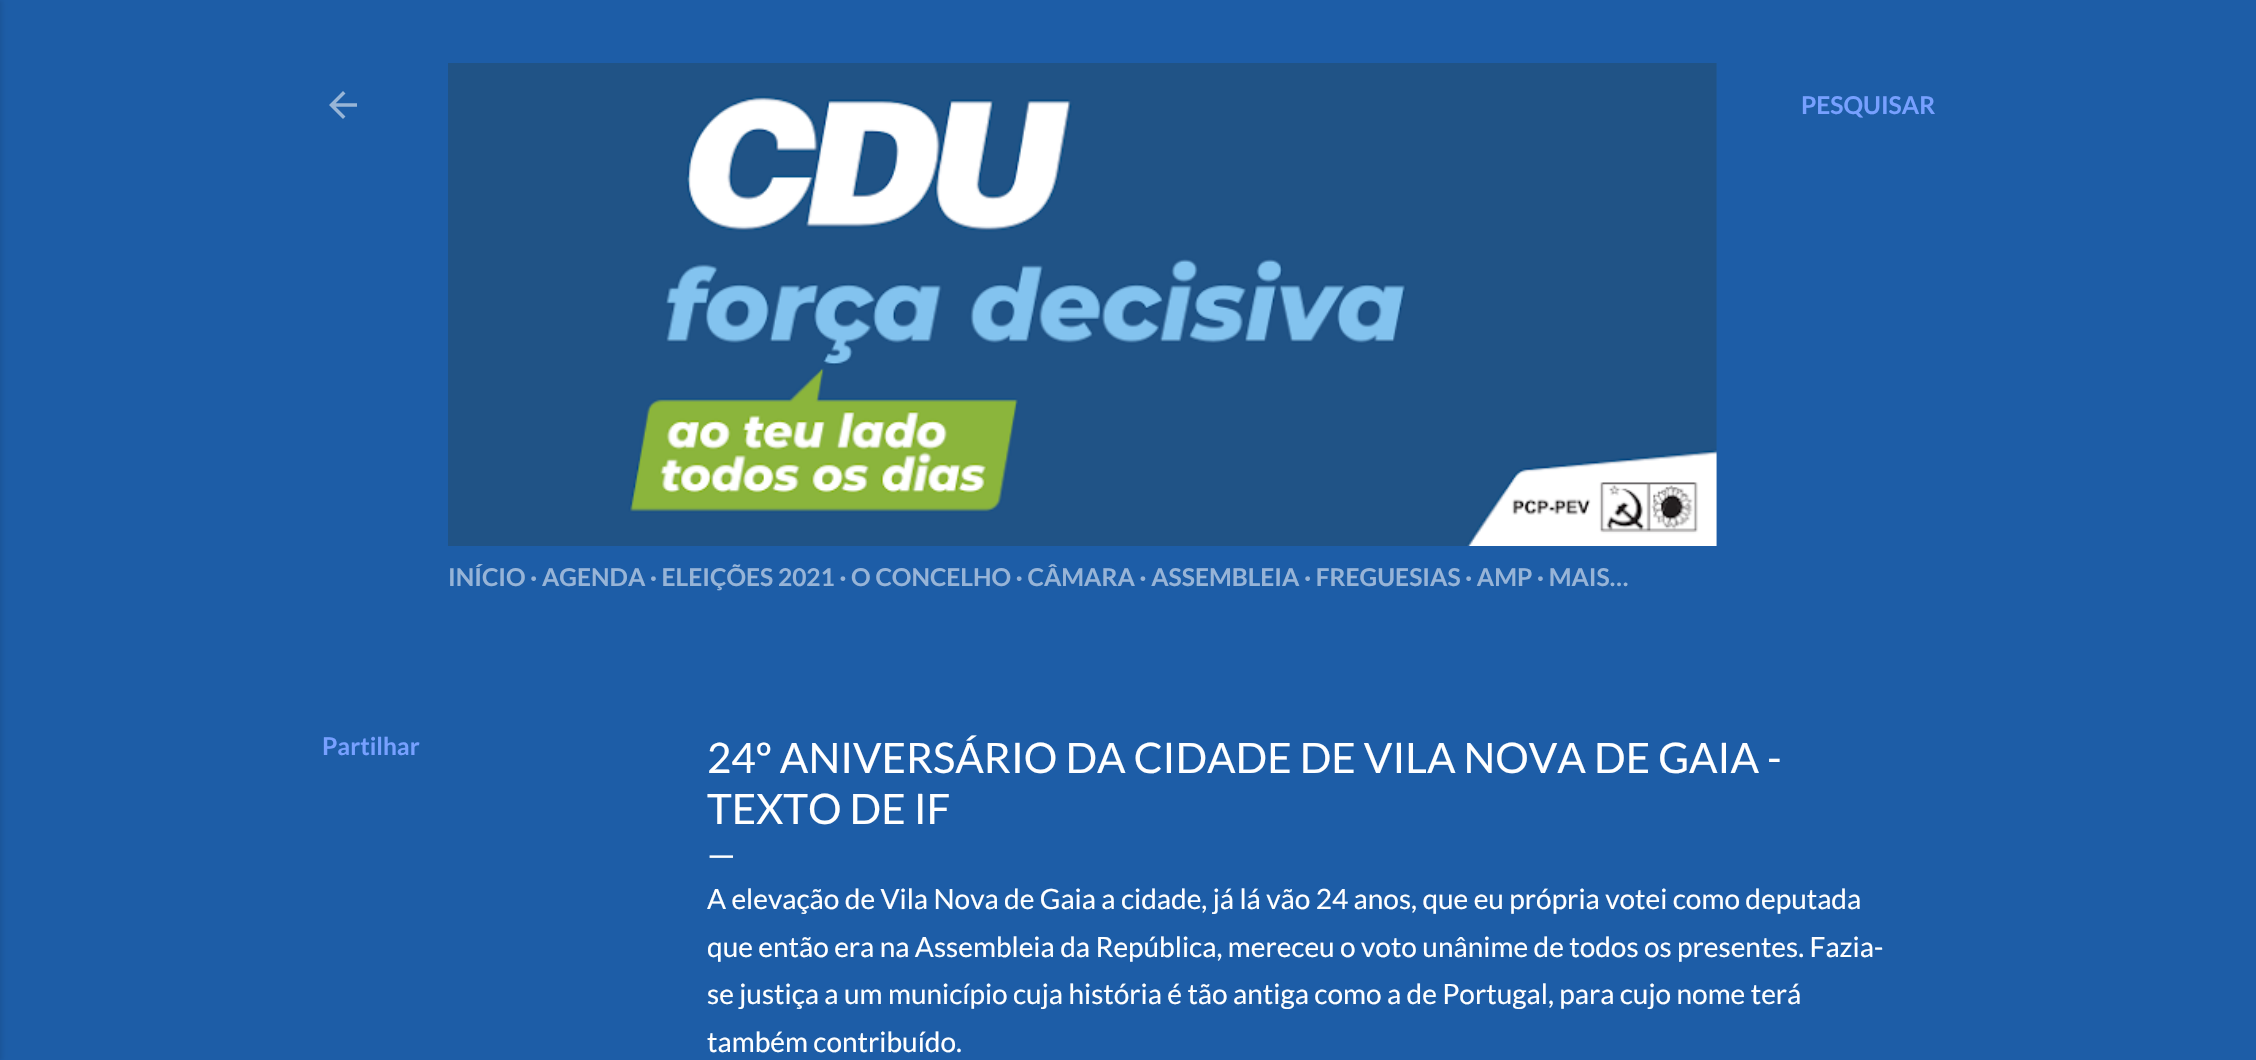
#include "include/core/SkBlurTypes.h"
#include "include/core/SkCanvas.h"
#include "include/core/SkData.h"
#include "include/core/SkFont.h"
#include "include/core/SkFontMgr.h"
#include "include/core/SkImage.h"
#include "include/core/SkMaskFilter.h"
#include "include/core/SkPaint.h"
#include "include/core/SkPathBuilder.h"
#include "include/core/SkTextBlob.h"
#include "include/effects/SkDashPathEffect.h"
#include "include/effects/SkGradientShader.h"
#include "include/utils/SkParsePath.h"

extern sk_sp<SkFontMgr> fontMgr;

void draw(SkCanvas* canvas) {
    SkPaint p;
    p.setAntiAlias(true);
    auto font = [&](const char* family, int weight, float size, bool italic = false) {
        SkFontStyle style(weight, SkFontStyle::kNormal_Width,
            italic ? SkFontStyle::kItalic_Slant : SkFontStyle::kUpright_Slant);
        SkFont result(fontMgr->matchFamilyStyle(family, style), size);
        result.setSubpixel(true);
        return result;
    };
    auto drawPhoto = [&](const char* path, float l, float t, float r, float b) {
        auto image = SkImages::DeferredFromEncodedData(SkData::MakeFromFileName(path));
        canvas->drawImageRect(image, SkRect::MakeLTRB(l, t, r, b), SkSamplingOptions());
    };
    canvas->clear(0xFF1D5DA7);
    p.setColor(0x1A000000);
    p.setMaskFilter(SkMaskFilter::MakeBlur(kNormal_SkBlurStyle, 2.5f));
    canvas->drawRect(SkRect::MakeLTRB(-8, 0, 2, 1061), p);
    p.setMaskFilter(nullptr);
    drawPhoto("media/1.png", 329, 91, 357, 119);
    auto font1 = font("Lato", 700, 24.5f);
    p.setColor(0xFF77A0FF);
    canvas->drawString("PESQUISAR", 1801, 114, font1, p);
    drawPhoto("media/2.png", 448, 63, 1717, 546);
    p.setColor(0xFF97B4D7);
    canvas->drawString("INÍCIO · AGENDA · ELEIÇÕES 2021 · O CONCELHO · CÂMARA · ASSEMBLEIA · FREGUESIAS · AMP · MAIS…", 448, 586, font1, p);
    p.setColor(0xFF77A0FF);
    canvas->drawString("Partilhar", 322, 755, font1, p);
    auto font2 = font("Lato", 400, 42);
    p.setColor(0xFFFFFFFF);
    canvas->drawString("24º ANIVERSÁRIO DA CIDADE DE VILA NOVA DE GAIA -", 707, 773, font2, p);
    canvas->drawString("TEXTO DE IF", 707, 824, font2, p);
    auto font3 = font("Lato", 400, 35);
    canvas->drawString("—", 707, 867, font3, p);
    auto font4 = font("Lato", 400, 28);
    {
        const struct { const char* s; float x, y; } items[] = {
            {"A elevação de Vila Nova de Gaia a cidade, já lá vão 24 anos, que eu própria votei como deputada", 707, 909},
            {"que então era na Assembleia da República, mereceu o voto unânime de todos os presentes. Fazia-", 707, 957},
            {"se justiça a um município cuja história é tão antiga como a de Portugal, para cujo nome terá", 707, 1004},
            {"também contribuído.", 707, 1052},
        };
        for (auto [s, x, y] : items) {
            canvas->drawString(s, x, y, font4, p);
        }
    }
}
